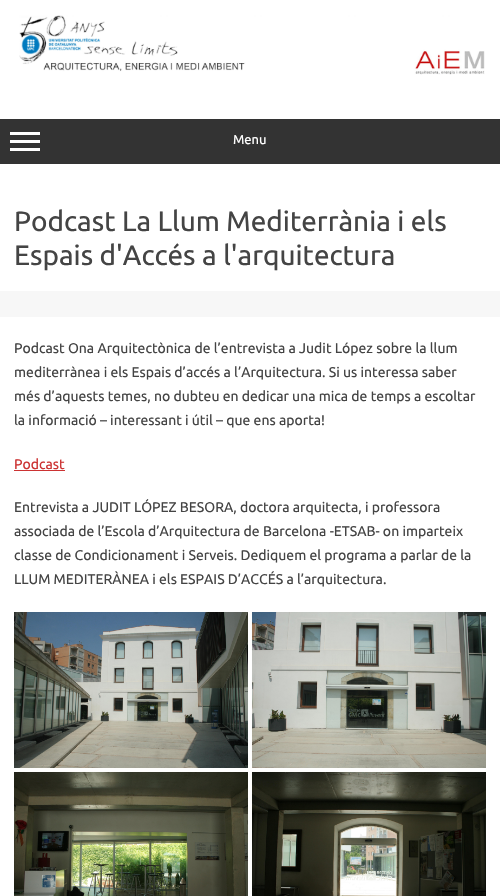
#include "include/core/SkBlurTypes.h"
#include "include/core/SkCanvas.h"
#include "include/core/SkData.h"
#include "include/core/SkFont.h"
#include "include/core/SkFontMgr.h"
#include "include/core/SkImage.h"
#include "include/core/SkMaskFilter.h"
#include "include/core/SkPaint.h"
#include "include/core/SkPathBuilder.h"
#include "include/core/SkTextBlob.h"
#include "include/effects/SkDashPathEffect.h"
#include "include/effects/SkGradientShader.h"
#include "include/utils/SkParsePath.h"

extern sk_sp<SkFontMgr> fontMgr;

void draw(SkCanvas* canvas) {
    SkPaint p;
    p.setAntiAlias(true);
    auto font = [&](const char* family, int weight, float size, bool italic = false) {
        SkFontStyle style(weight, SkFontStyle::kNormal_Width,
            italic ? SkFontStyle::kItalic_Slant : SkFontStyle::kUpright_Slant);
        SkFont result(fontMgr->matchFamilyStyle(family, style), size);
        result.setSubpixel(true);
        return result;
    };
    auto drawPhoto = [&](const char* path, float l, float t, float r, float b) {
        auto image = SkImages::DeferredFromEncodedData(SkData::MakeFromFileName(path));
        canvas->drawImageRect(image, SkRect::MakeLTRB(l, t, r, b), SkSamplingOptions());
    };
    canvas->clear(0xFFFFFFFF);
    drawPhoto("media/1.png", 19, 15, 485, 75);
    {
        const struct { float l, t, r, b; SkColor color; } items[] = {
            {0, 119, 500, 164, 0xFF333333},
            {10, 132, 40, 135, 0xFFFFFFFF},
            {10, 140, 40, 143, 0xFFFFFFFF},
            {10, 148, 40, 151, 0xFFFFFFFF},
        };
        for (auto [l, t, r, b, color] : items) {
            p.setColor(color);
            canvas->drawRect(SkRect::MakeLTRB(l, t, r, b), p);
        }
    }
    auto font1 = font("Ubuntu", 400, 13);
    canvas->drawString("Menu", 233, 144, font1, p);
    auto font2 = font("Ubuntu", 400, 28);
    p.setColor(0xFF444444);
    canvas->drawString("Podcast La Llum Mediterrània i els", 14, 231, font2, p);
    canvas->drawString("Espais d'Accés a l'arquitectura", 14, 265, font2, p);
    p.setColor(0xFFF7F7F7);
    canvas->drawRect(SkRect::MakeLTRB(0, 291, 500, 317), p);
    auto font3 = font("Ubuntu", 400, 14);
    p.setColor(0xFF444444);
    {
        const struct { const char* s; float x, y; } items[] = {
            {"Podcast Ona Arquitectònica de l’entrevista a Judit López sobre la llum", 14, 353},
            {"mediterrànea i els Espais d’accés a l’Arquitectura. Si us interessa saber", 14, 377},
            {"més d’aquests temes, no dubteu en dedicar una mica de temps a escoltar", 14, 401},
            {"la informació – interessant i útil – que ens aporta!", 14, 425},
        };
        for (auto [s, x, y] : items) {
            canvas->drawString(s, x, y, font3, p);
        }
    }
    p.setColor(0xFFCC3333);
    canvas->drawString("Podcast", 14, 469, font3, p);
    canvas->drawRect(SkRect::MakeLTRB(14, 470, 65, 471), p);
    p.setColor(0xFF444444);
    {
        const struct { const char* s; float x, y; } items[] = {
            {"Entrevista a JUDIT LÓPEZ BESORA, doctora arquitecta, i professora", 14, 512},
            {"associada de l’Escola d’Arquitectura de Barcelona -ETSAB- on imparteix", 14, 536},
            {"classe de Condicionament i Serveis. Dediquem el programa a parlar de la", 14, 560},
            {"LLUM MEDITERÀNEA i els ESPAIS D’ACCÉS a l’arquitectura.", 14, 584},
        };
        for (auto [s, x, y] : items) {
            canvas->drawString(s, x, y, font3, p);
        }
    }
    drawPhoto("media/2.png", 14, 612, 486, 896);
}
